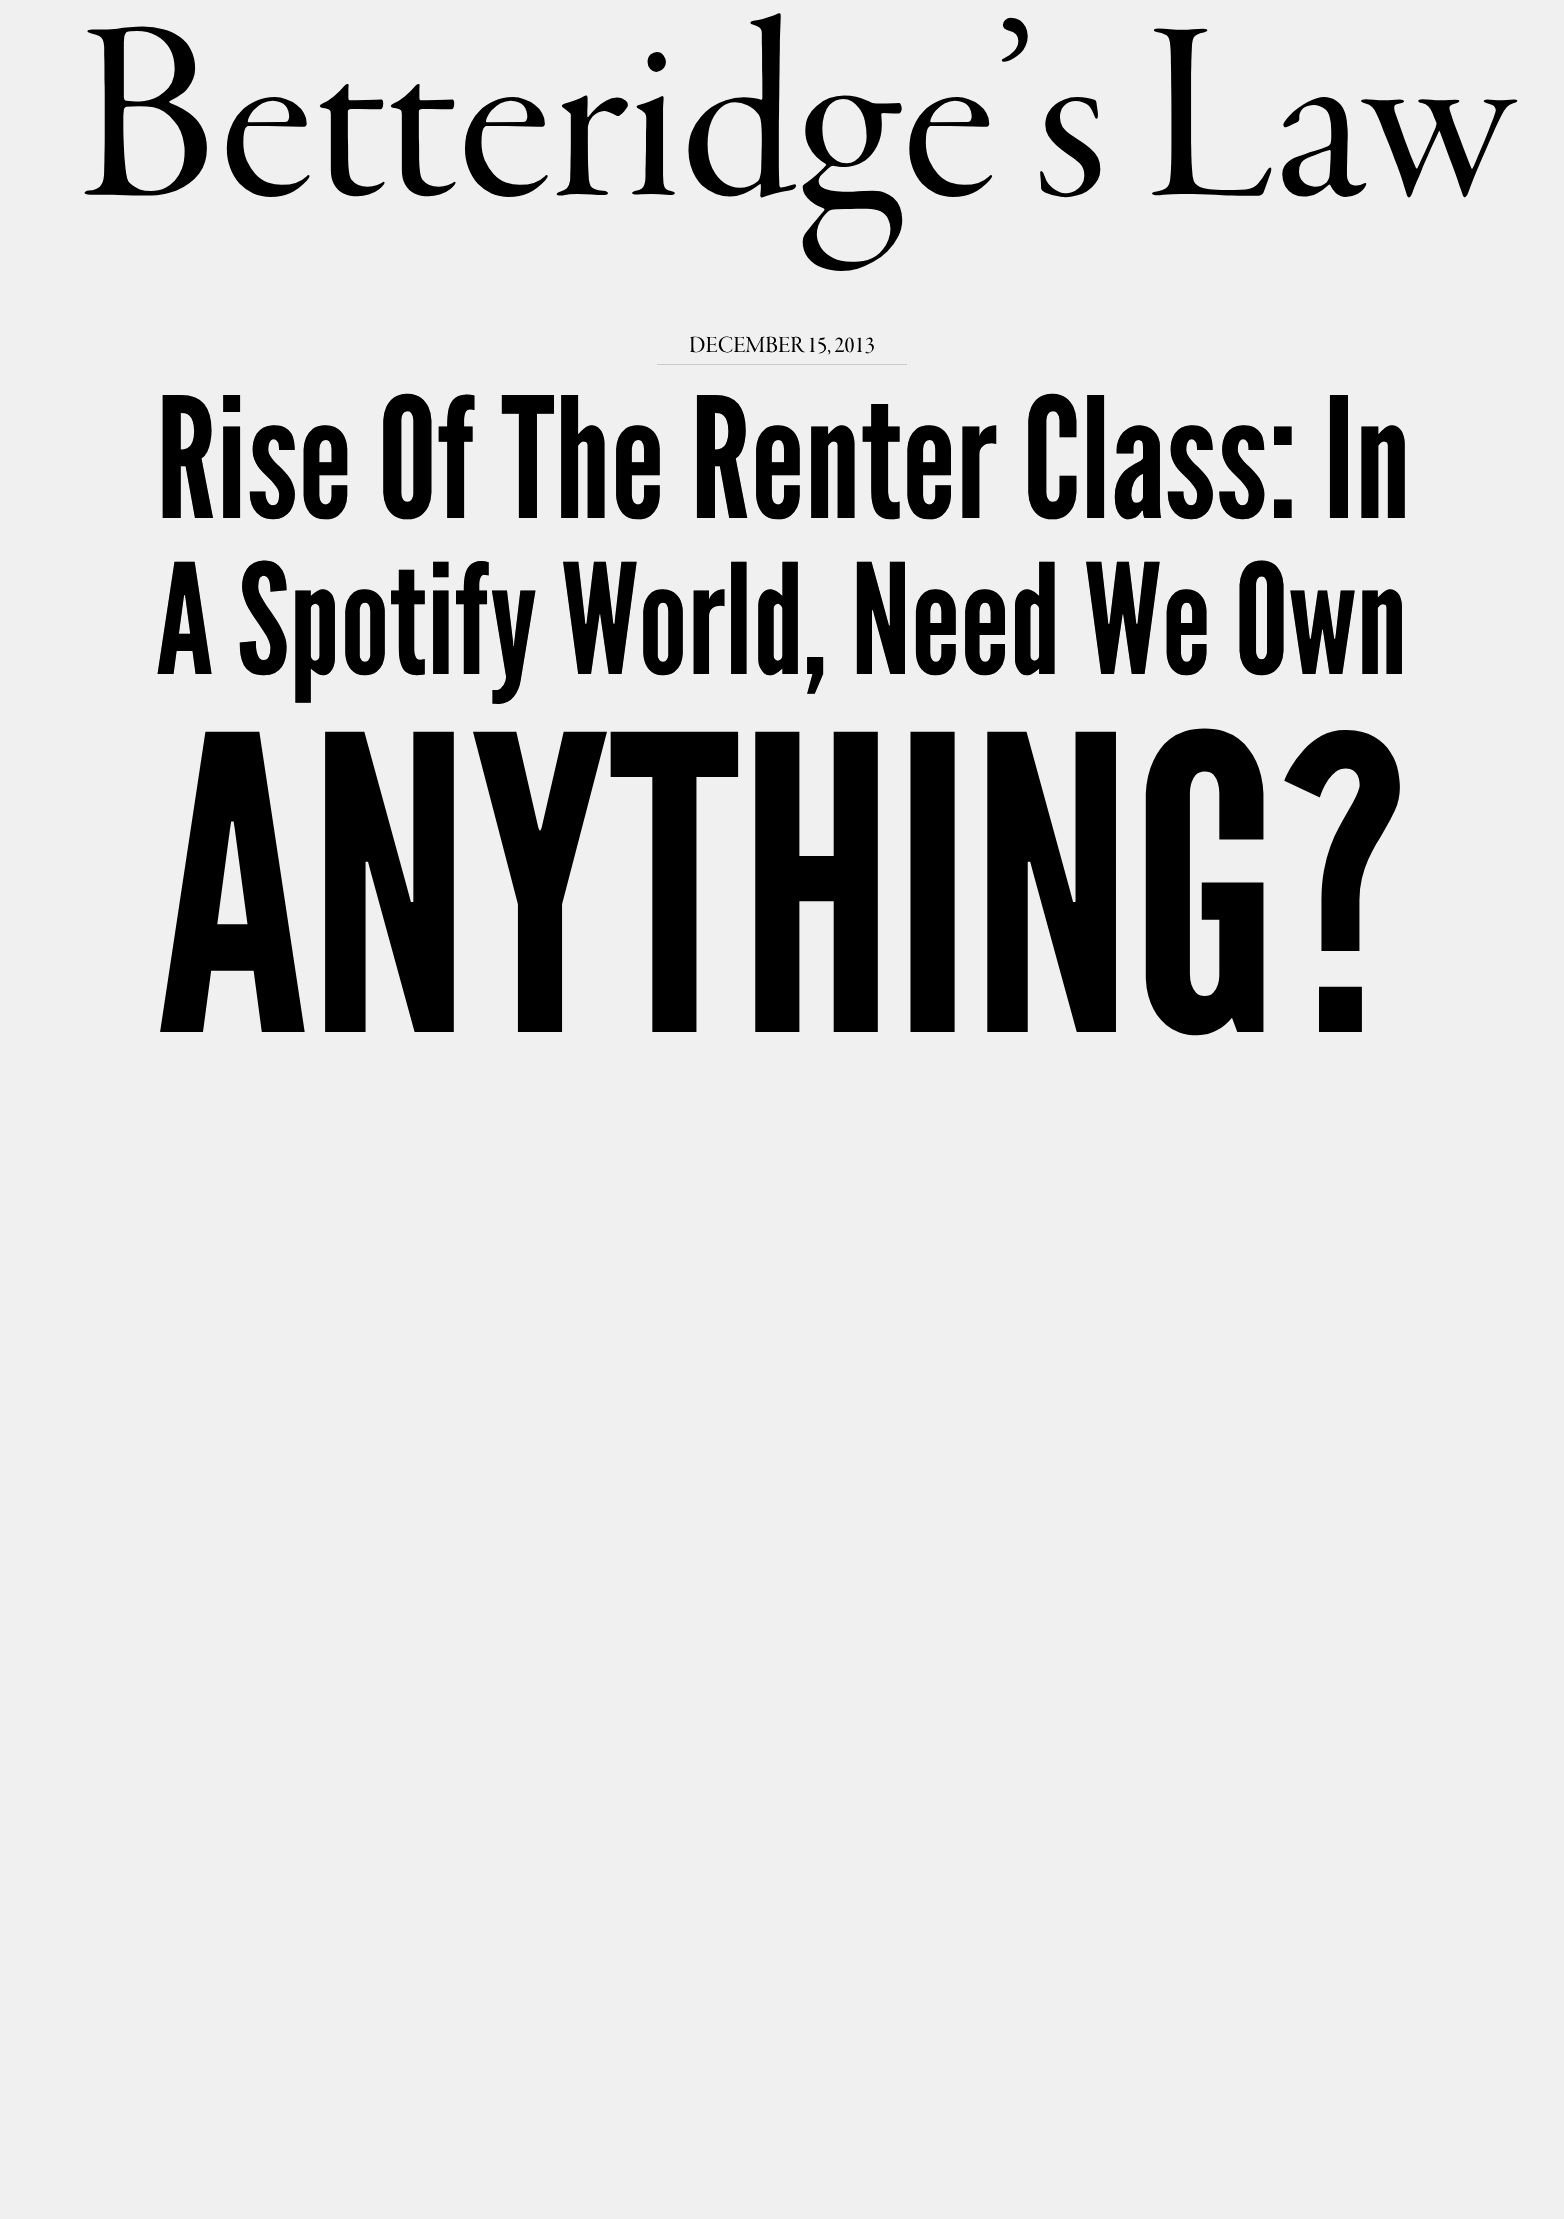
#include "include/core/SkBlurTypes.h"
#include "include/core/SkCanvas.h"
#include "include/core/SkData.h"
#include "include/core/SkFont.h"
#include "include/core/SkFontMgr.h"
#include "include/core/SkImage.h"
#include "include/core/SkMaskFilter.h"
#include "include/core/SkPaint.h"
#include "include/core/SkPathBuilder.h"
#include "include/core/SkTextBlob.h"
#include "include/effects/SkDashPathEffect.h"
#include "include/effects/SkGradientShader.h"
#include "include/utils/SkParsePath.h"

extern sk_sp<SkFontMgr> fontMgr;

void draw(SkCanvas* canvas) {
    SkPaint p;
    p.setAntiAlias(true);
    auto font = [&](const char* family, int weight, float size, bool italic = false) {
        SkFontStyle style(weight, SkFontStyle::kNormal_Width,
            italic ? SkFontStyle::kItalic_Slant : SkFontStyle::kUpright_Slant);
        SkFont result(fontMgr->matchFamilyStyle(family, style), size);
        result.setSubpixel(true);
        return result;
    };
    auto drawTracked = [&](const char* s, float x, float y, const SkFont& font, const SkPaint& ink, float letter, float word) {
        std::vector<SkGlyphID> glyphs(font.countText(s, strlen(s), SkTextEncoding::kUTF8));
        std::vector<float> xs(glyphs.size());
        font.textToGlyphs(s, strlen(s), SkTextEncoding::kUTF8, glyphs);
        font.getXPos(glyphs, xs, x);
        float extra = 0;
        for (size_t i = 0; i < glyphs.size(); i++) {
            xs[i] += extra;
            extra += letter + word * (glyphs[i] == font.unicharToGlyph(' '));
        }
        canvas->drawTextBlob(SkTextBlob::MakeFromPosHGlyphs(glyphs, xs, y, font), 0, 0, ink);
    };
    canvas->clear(0xFFF0F0F0);
    auto font1 = font("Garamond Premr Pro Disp", 400, 262);
    p.setColor(0xFF000000);
    drawTracked("Betteridge’s Law", 78, 194, font1, p, 0, -2);
    p.setColor(0xFFCCCCCC);
    canvas->drawRect(SkRect::MakeLTRB(657, 364, 907, 365), p);
    auto font2 = font("Garamond Premr Pro Disp", 400, 24);
    p.setColor(0xFF000000);
    canvas->drawString("DECEMBER 15, 2013", 689, 352, font2, p);
    auto font3 = font("League Gothic", 400, 167.25f);
    canvas->drawString("Rise Of The Renter Class: In", 156, 518, font3, p);
    auto font4 = font("League Gothic", 400, 152.75f);
    drawTracked("A Spotify World, Need We Own", 156, 674, font4, p, 0, 0.25f);
    auto font5 = font("League Gothic", 400, 408.5f);
    canvas->drawString("ANYTHING?", 156, 1032, font5, p);
}
